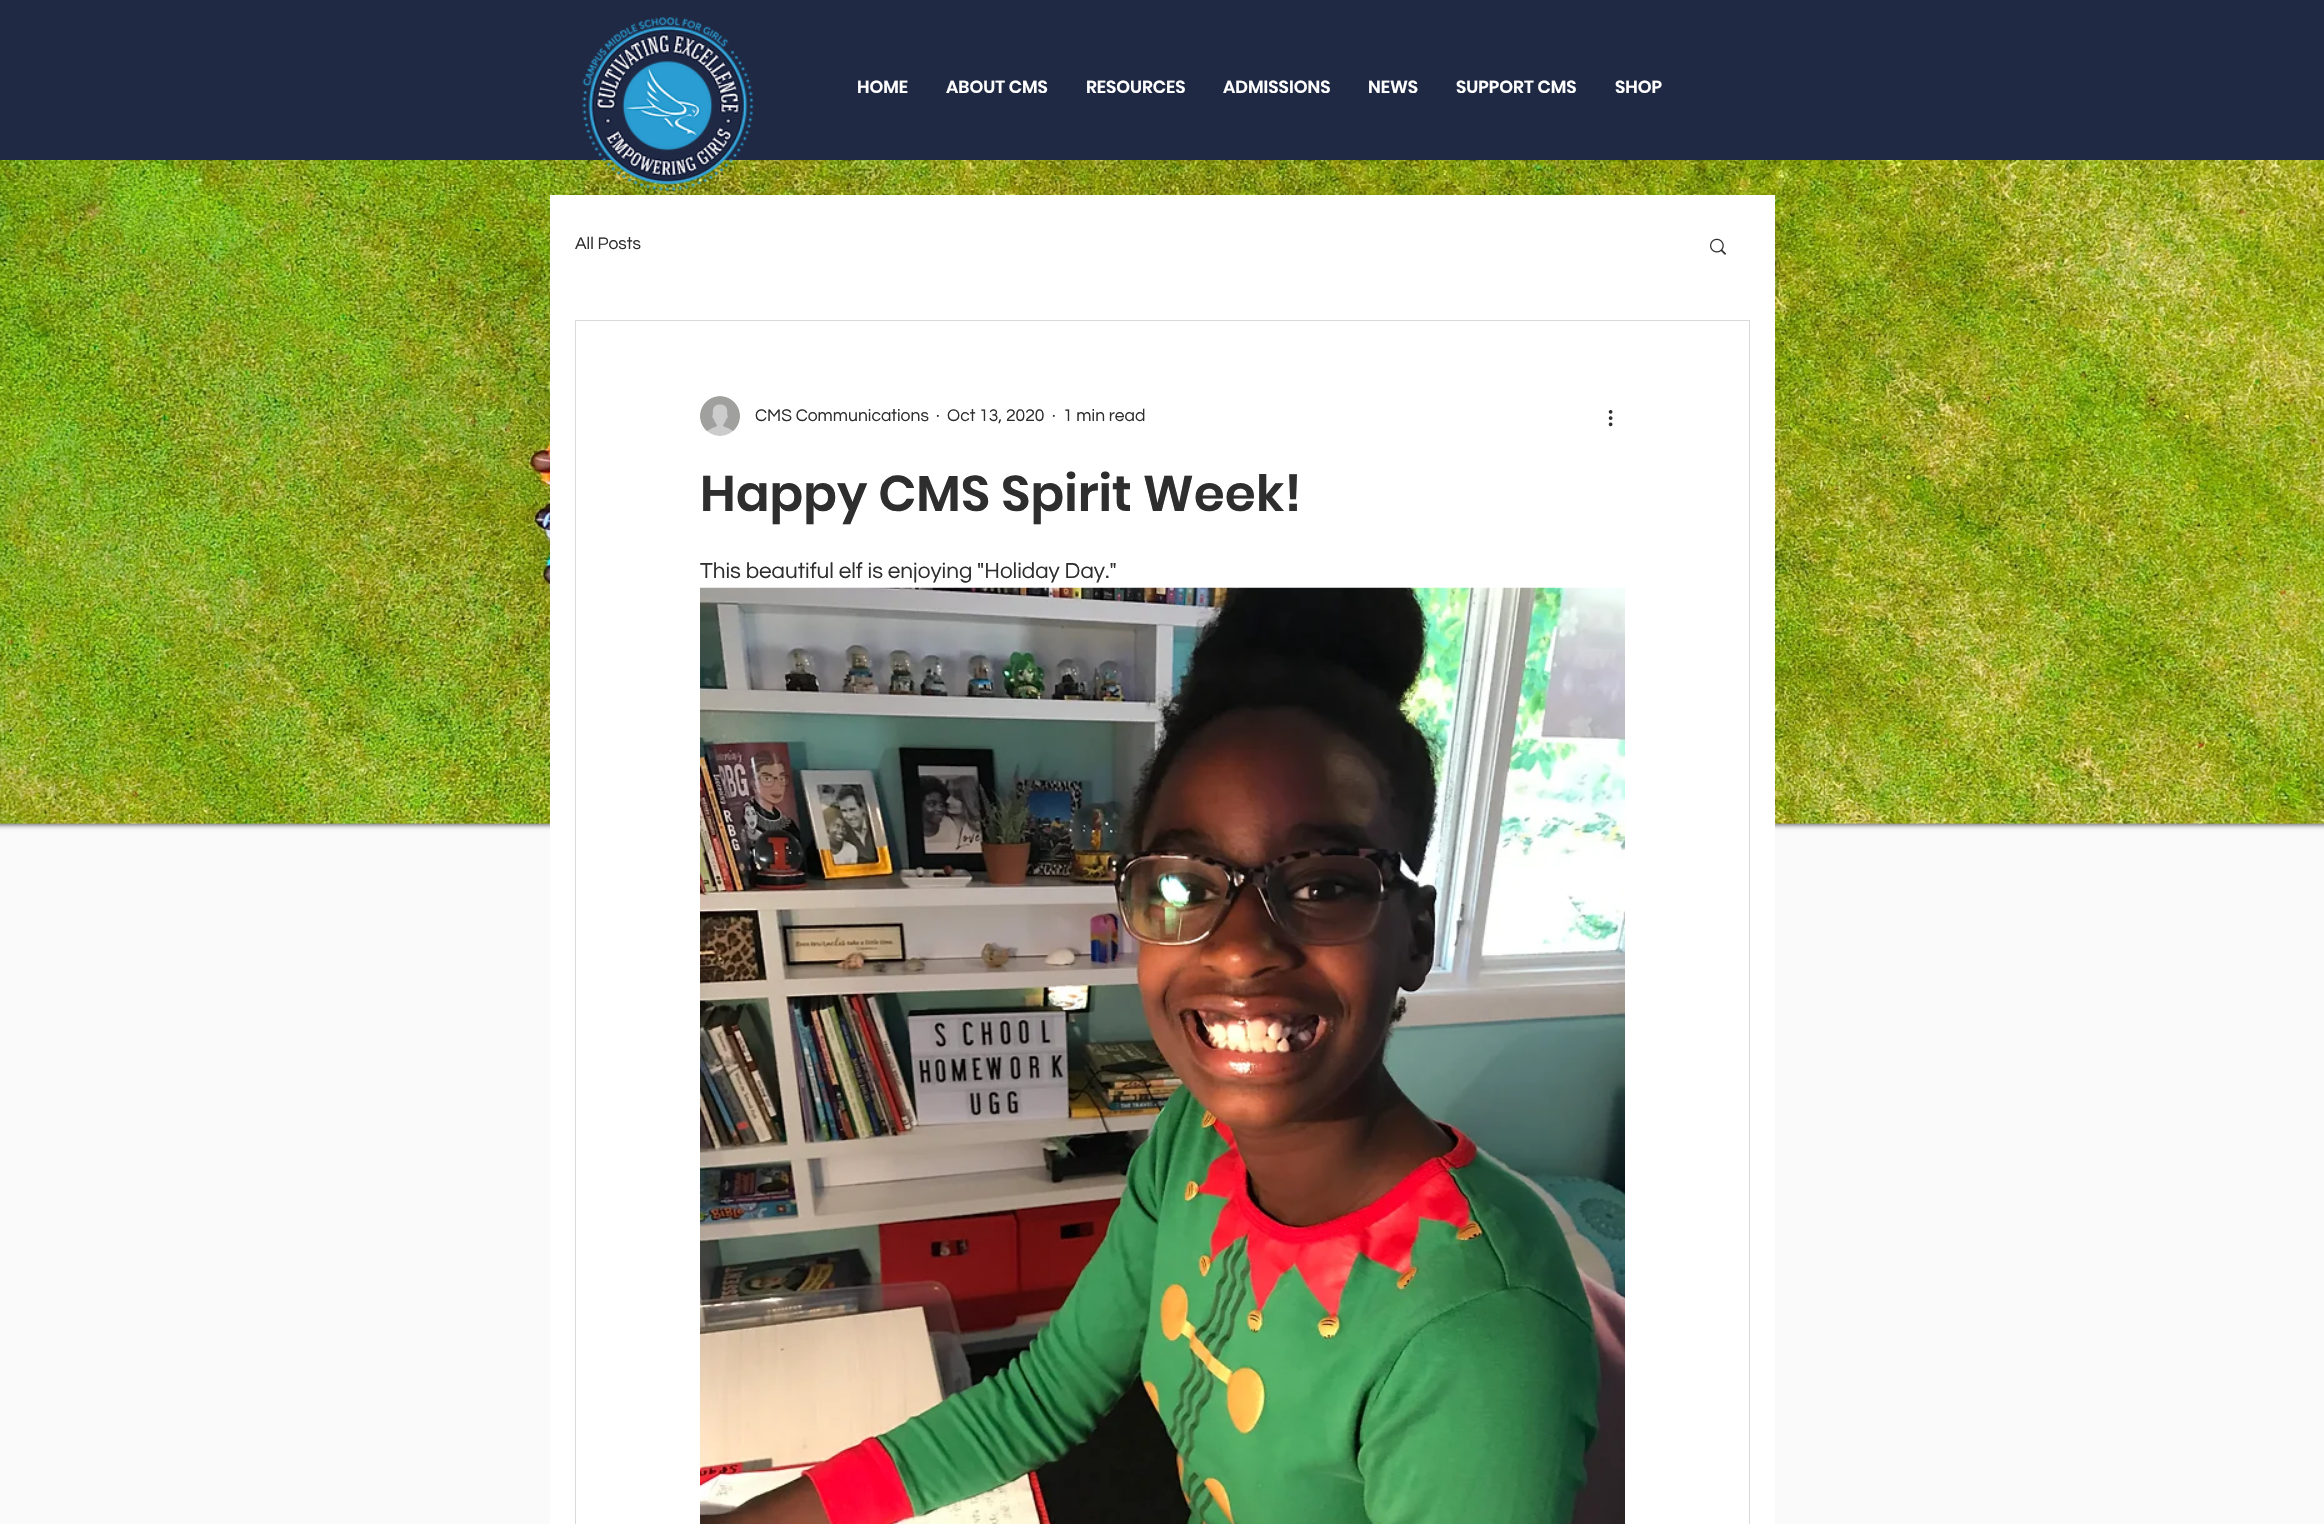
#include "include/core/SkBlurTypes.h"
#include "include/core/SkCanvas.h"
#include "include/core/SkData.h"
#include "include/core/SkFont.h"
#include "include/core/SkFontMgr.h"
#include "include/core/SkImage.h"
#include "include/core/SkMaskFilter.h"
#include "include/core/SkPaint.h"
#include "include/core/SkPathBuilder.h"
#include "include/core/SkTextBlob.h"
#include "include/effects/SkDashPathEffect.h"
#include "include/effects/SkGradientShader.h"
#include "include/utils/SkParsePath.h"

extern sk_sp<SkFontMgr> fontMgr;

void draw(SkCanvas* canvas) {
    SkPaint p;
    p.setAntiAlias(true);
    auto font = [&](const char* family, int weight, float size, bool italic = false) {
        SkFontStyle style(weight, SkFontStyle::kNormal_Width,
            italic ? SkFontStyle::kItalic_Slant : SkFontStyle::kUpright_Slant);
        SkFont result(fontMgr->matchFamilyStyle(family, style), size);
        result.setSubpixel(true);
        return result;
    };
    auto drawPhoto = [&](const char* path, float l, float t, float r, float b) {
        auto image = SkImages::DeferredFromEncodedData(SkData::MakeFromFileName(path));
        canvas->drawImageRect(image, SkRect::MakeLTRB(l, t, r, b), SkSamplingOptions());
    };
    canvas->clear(0xFFFAFAFA);
    p.setColor(0x99000000);
    p.setMaskFilter(SkMaskFilter::MakeBlur(kNormal_SkBlurStyle, 2.5f));
    canvas->drawRect(SkRect::MakeLTRB(-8, 155, 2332, 825), p);
    p.setMaskFilter(nullptr);
    p.setColor(0xFF1F2944);
    canvas->drawRect(SkRect::MakeLTRB(0, 0, 2324, 160), p);
    drawPhoto("media/2.png", 0, 160, 2324, 824);
    drawPhoto("media/1.png", 582, 17, 754, 192);
    auto font1 = font("Poppins", 600, 17.5f);
    p.setColor(0xFFFFFFFF);
    {
        const struct { const char* s; float x, y; } items[] = {
            {"HOME", 857, 93},
            {"ABOUT CMS", 946, 93},
            {"RESOURCES", 1086, 93},
            {"ADMISSIONS", 1223, 93},
            {"NEWS", 1368, 93},
            {"SUPPORT CMS", 1456, 93},
            {"SHOP", 1615, 93},
        };
        for (auto [s, x, y] : items) {
            canvas->drawString(s, x, y, font1, p);
        }
    }
    canvas->drawRect(SkRect::MakeLTRB(550, 195, 1775, 1524), p);
    auto font2 = font("Questrial", 400, 17.5f);
    p.setColor(0xFF2F2E2E);
    canvas->drawString("All Posts", 575, 249, font2, p);
    drawPhoto("media/3.png", 1710, 238, 1727, 255);
    p.setStyle(SkPaint::kStroke_Style);
    p.setStrokeWidth(1);
    p.setColor(0xFFD9D9D9);
    canvas->drawRect(SkRect::MakeLTRB(575.5f, 320.5f, 1749.5f, 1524.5f), p);
    drawPhoto("media/4.png", 700, 396, 740, 436);
    p.setStyle(SkPaint::kFill_Style);
    p.setColor(0xFF2F2E2E);
    {
        const struct { const char* s; float x, y; } items[] = {
            {"CMS Communications", 755, 421},
            {"·", 936, 421},
            {"Oct 13, 2020", 947, 421},
            {"·", 1052, 421},
            {"1 min read", 1063, 421},
        };
        for (auto [s, x, y] : items) {
            canvas->drawString(s, x, y, font2, p);
        }
    }
    drawPhoto("media/5.png", 1608, 410, 1613, 427);
    auto font3 = font("Poppins", 600, 50);
    canvas->drawString("Happy CMS Spirit Week!", 700, 511, font3, p);
    auto font4 = font("Questrial", 400, 22.5f);
    canvas->drawString("This beautiful elf is enjoying \"Holiday Day.\"", 700, 578, font4, p);
    drawPhoto("media/6.png", 700, 587, 1625, 1524);
}
